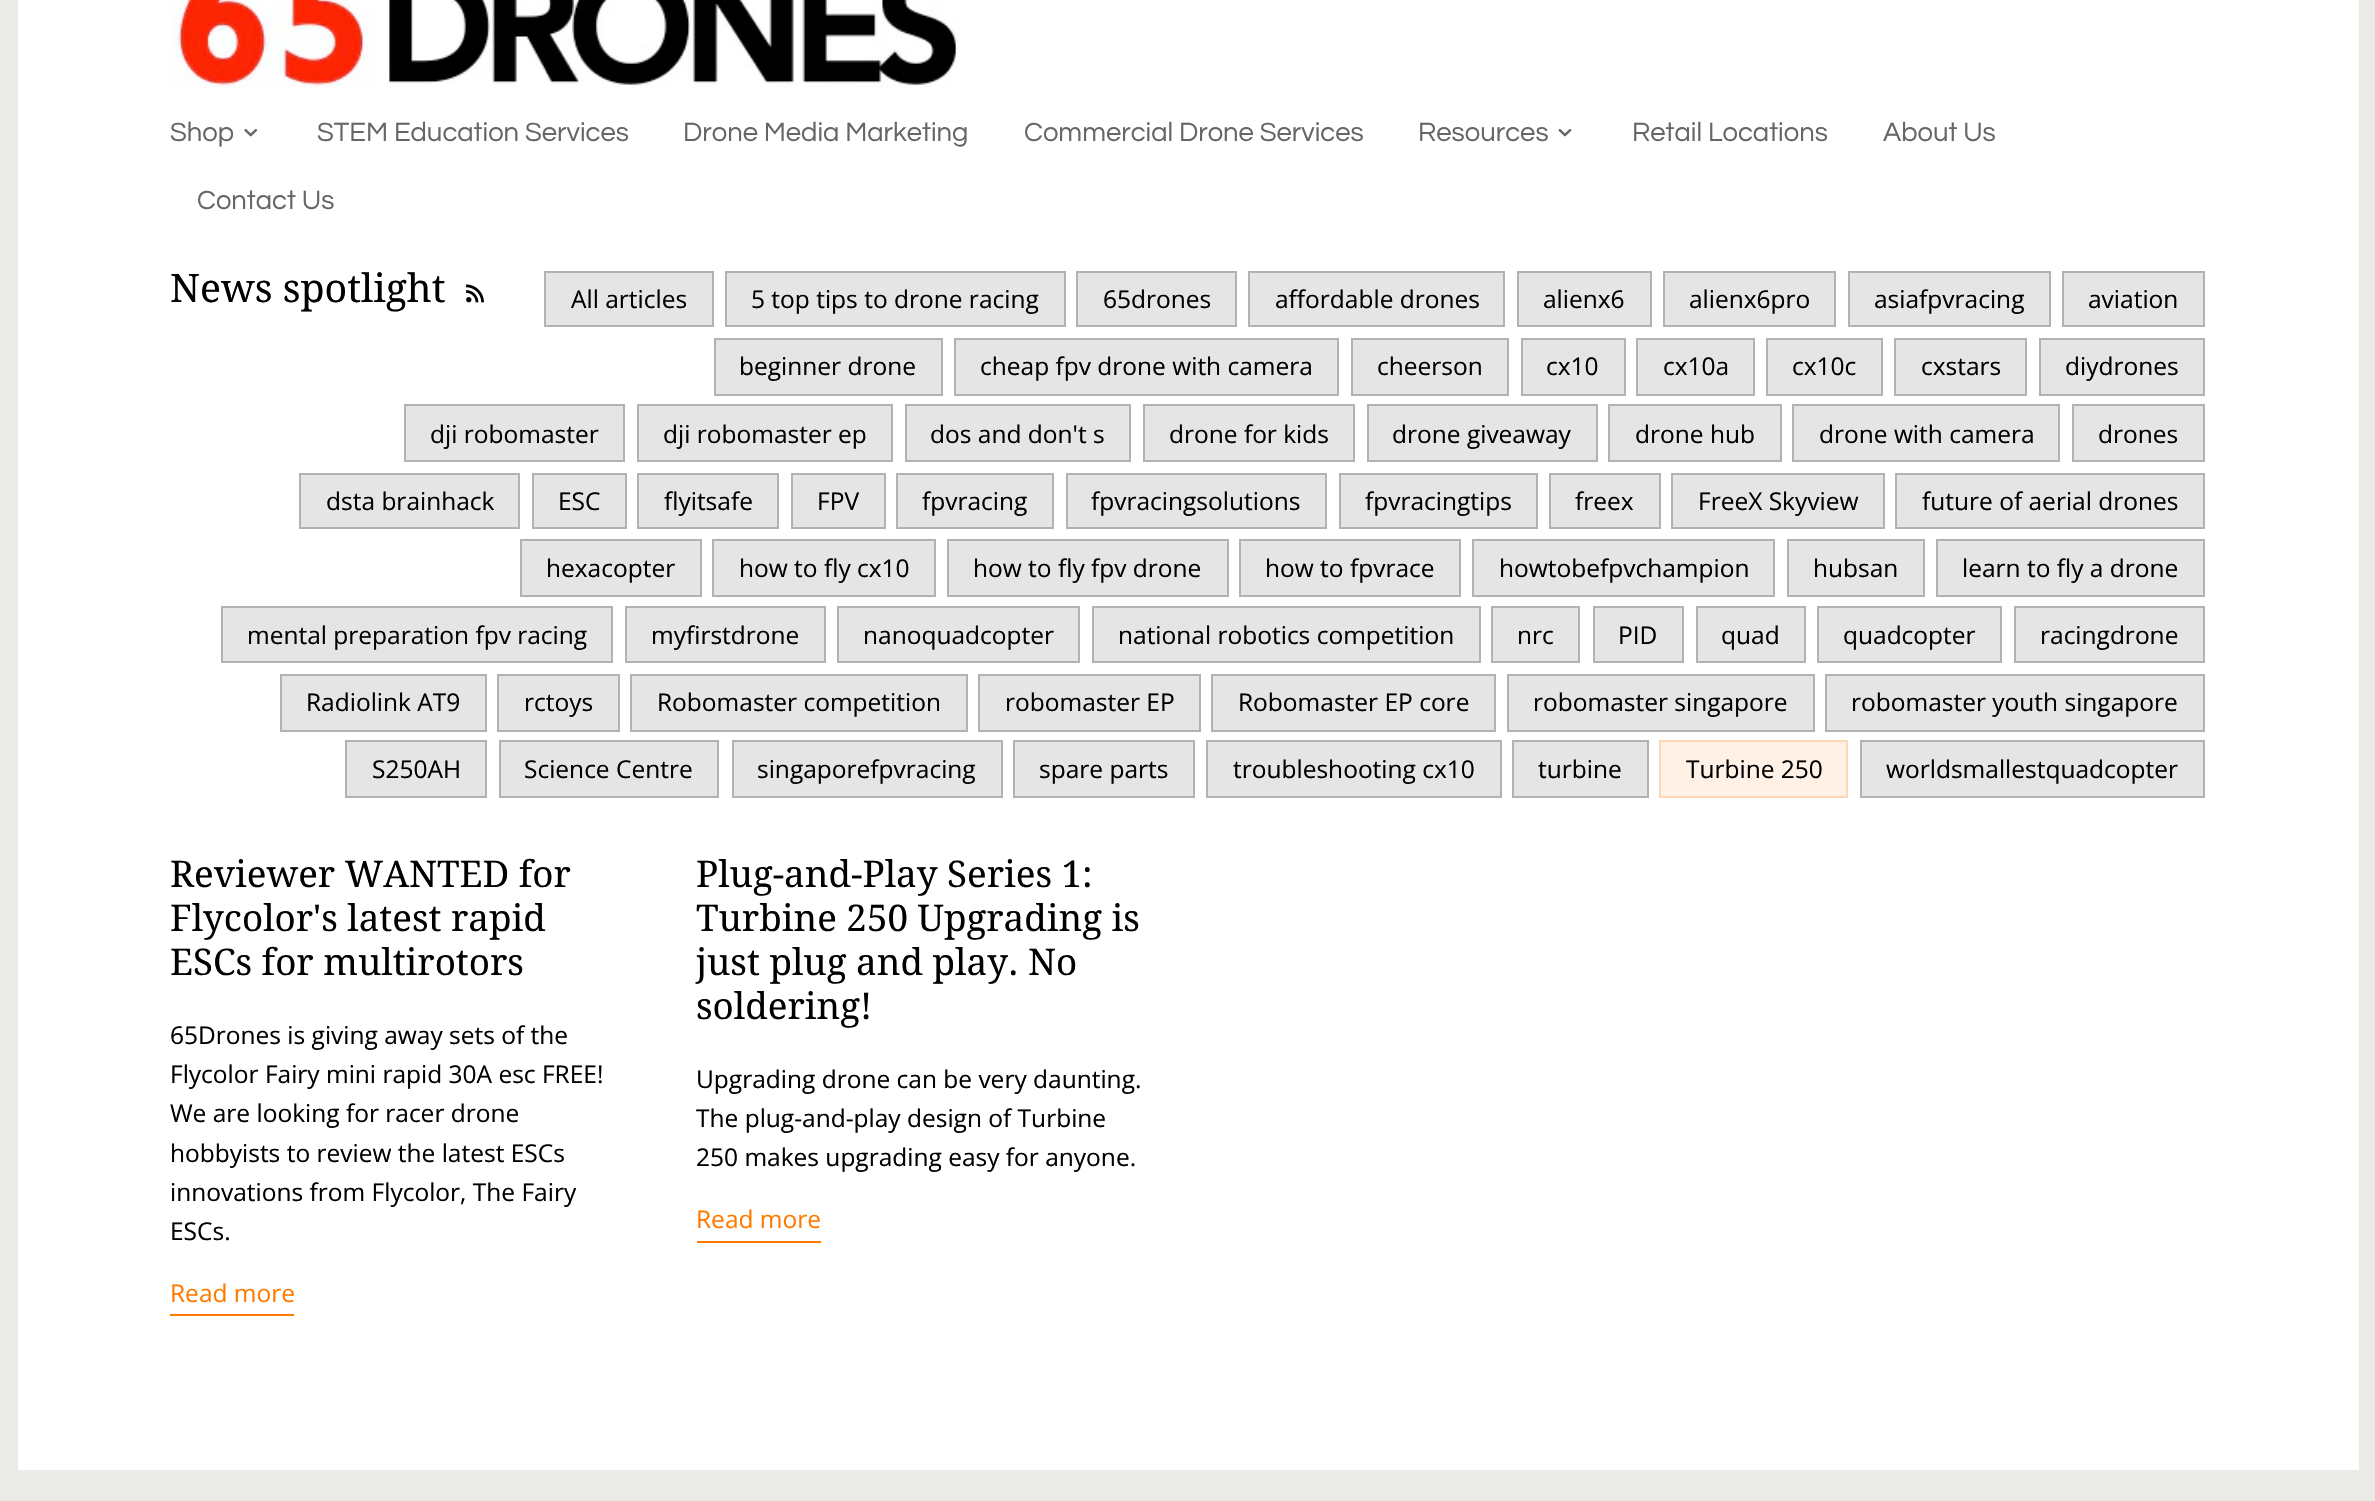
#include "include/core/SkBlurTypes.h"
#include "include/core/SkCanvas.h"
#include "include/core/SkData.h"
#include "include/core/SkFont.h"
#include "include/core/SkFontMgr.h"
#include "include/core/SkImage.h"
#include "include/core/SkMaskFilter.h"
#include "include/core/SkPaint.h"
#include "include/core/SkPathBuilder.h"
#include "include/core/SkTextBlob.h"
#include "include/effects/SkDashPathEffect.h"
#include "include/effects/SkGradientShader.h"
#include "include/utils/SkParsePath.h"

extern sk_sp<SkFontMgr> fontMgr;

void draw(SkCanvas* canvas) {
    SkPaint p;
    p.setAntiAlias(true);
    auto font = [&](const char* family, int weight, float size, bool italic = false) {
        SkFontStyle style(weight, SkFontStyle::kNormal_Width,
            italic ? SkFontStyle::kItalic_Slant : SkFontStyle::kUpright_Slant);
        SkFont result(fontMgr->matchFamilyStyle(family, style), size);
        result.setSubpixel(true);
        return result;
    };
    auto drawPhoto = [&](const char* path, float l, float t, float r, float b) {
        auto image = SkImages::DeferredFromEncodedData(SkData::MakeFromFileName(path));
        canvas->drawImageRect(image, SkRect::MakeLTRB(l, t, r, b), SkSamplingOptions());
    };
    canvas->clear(0xFFEAEBE7);
    p.setColor(0xFFFFFFFF);
    canvas->drawRect(SkRect::MakeLTRB(18, 0, 2359, 1470), p);
    drawPhoto("media/1.png", 170, 0, 958, 88);
    auto font1 = font("Questrial", 400, 27.4f);
    p.setColor(0xFF666666);
    canvas->drawString("Shop", 170, 141, font1, p);
    drawPhoto("media/2.png", 244, 128, 257, 137);
    {
        const struct { const char* s; float x, y; } items[] = {
            {"STEM Education Services", 317, 141},
            {"Drone Media Marketing", 683, 141},
            {"Commercial Drone Services", 1024, 141},
            {"Resources", 1418, 141},
        };
        for (auto [s, x, y] : items) {
            canvas->drawString(s, x, y, font1, p);
        }
    }
    drawPhoto("media/3.png", 1558, 128, 1572, 137);
    {
        const struct { const char* s; float x, y; } items[] = {
            {"Retail Locations", 1632, 141},
            {"About Us", 1883, 141},
            {"Contact Us", 197, 209},
        };
        for (auto [s, x, y] : items) {
            canvas->drawString(s, x, y, font1, p);
        }
    }
    auto font2 = font("Droid Serif", 400, 39.25f);
    p.setColor(0xFF000000);
    canvas->drawString("News spotlight", 170, 302, font2, p);
    drawPhoto("media/4.png", 466, 284, 484, 303);
    p.setColor(0xFFE5E5E5);
    canvas->drawRect(SkRect::MakeLTRB(545, 272, 713, 326), p);
    p.setStyle(SkPaint::kStroke_Style);
    p.setStrokeWidth(2);
    p.setColor(0xFFB2B2B2);
    canvas->drawRect(SkRect::MakeLTRB(545, 272, 713, 326), p);
    auto font3 = font("Open Sans", 400, 24.5f);
    p.setStyle(SkPaint::kFill_Style);
    p.setColor(0xFF000000);
    canvas->drawString("All articles", 571, 308, font3, p);
    p.setColor(0xFFE5E5E5);
    canvas->drawRect(SkRect::MakeLTRB(726, 272, 1065, 326), p);
    p.setStyle(SkPaint::kStroke_Style);
    p.setColor(0xFFB2B2B2);
    canvas->drawRect(SkRect::MakeLTRB(726, 272, 1065, 326), p);
    p.setStyle(SkPaint::kFill_Style);
    p.setColor(0xFF000000);
    canvas->drawString("5 top tips to drone racing", 751, 308, font3, p);
    p.setColor(0xFFE5E5E5);
    canvas->drawRect(SkRect::MakeLTRB(1077, 272, 1236, 326), p);
    p.setStyle(SkPaint::kStroke_Style);
    p.setColor(0xFFB2B2B2);
    canvas->drawRect(SkRect::MakeLTRB(1077, 272, 1236, 326), p);
    p.setStyle(SkPaint::kFill_Style);
    p.setColor(0xFF000000);
    canvas->drawString("65drones", 1103, 308, font3, p);
    p.setColor(0xFFE5E5E5);
    canvas->drawRect(SkRect::MakeLTRB(1249, 272, 1504, 326), p);
    p.setStyle(SkPaint::kStroke_Style);
    p.setColor(0xFFB2B2B2);
    canvas->drawRect(SkRect::MakeLTRB(1249, 272, 1504, 326), p);
    p.setStyle(SkPaint::kFill_Style);
    p.setColor(0xFF000000);
    canvas->drawString("affordable drones", 1275, 308, font3, p);
    p.setColor(0xFFE5E5E5);
    canvas->drawRect(SkRect::MakeLTRB(1518, 272, 1651, 326), p);
    p.setStyle(SkPaint::kStroke_Style);
    p.setColor(0xFFB2B2B2);
    canvas->drawRect(SkRect::MakeLTRB(1518, 272, 1651, 326), p);
    p.setStyle(SkPaint::kFill_Style);
    p.setColor(0xFF000000);
    canvas->drawString("alienx6", 1543, 308, font3, p);
    p.setColor(0xFFE5E5E5);
    canvas->drawRect(SkRect::MakeLTRB(1664, 272, 1835, 326), p);
    p.setStyle(SkPaint::kStroke_Style);
    p.setColor(0xFFB2B2B2);
    canvas->drawRect(SkRect::MakeLTRB(1664, 272, 1835, 326), p);
    p.setStyle(SkPaint::kFill_Style);
    p.setColor(0xFF000000);
    canvas->drawString("alienx6pro", 1689, 308, font3, p);
    p.setColor(0xFFE5E5E5);
    canvas->drawRect(SkRect::MakeLTRB(1849, 272, 2050, 326), p);
    p.setStyle(SkPaint::kStroke_Style);
    p.setColor(0xFFB2B2B2);
    canvas->drawRect(SkRect::MakeLTRB(1849, 272, 2050, 326), p);
    p.setStyle(SkPaint::kFill_Style);
    p.setColor(0xFF000000);
    canvas->drawString("asiafpvracing", 1874, 308, font3, p);
    p.setColor(0xFFE5E5E5);
    canvas->drawRect(SkRect::MakeLTRB(2063, 272, 2204, 326), p);
    p.setStyle(SkPaint::kStroke_Style);
    p.setColor(0xFFB2B2B2);
    canvas->drawRect(SkRect::MakeLTRB(2063, 272, 2204, 326), p);
    p.setStyle(SkPaint::kFill_Style);
    p.setColor(0xFF000000);
    canvas->drawString("aviation", 2088, 308, font3, p);
    p.setColor(0xFFE5E5E5);
    canvas->drawRect(SkRect::MakeLTRB(715, 339, 942, 395), p);
    p.setStyle(SkPaint::kStroke_Style);
    p.setColor(0xFFB2B2B2);
    canvas->drawRect(SkRect::MakeLTRB(715, 339, 942, 395), p);
    p.setStyle(SkPaint::kFill_Style);
    p.setColor(0xFF000000);
    canvas->drawString("beginner drone", 739, 375, font3, p);
    p.setColor(0xFFE5E5E5);
    canvas->drawRect(SkRect::MakeLTRB(955, 339, 1338, 395), p);
    p.setStyle(SkPaint::kStroke_Style);
    p.setColor(0xFFB2B2B2);
    canvas->drawRect(SkRect::MakeLTRB(955, 339, 1338, 395), p);
    p.setStyle(SkPaint::kFill_Style);
    p.setColor(0xFF000000);
    canvas->drawString("cheap fpv drone with camera", 980, 375, font3, p);
    p.setColor(0xFFE5E5E5);
    canvas->drawRect(SkRect::MakeLTRB(1352, 339, 1508, 395), p);
    p.setStyle(SkPaint::kStroke_Style);
    p.setColor(0xFFB2B2B2);
    canvas->drawRect(SkRect::MakeLTRB(1352, 339, 1508, 395), p);
    p.setStyle(SkPaint::kFill_Style);
    p.setColor(0xFF000000);
    canvas->drawString("cheerson", 1377, 375, font3, p);
    p.setColor(0xFFE5E5E5);
    canvas->drawRect(SkRect::MakeLTRB(1522, 339, 1625, 395), p);
    p.setStyle(SkPaint::kStroke_Style);
    p.setColor(0xFFB2B2B2);
    canvas->drawRect(SkRect::MakeLTRB(1522, 339, 1625, 395), p);
    p.setStyle(SkPaint::kFill_Style);
    p.setColor(0xFF000000);
    canvas->drawString("cx10", 1546, 375, font3, p);
    p.setColor(0xFFE5E5E5);
    canvas->drawRect(SkRect::MakeLTRB(1637, 339, 1754, 395), p);
    p.setStyle(SkPaint::kStroke_Style);
    p.setColor(0xFFB2B2B2);
    canvas->drawRect(SkRect::MakeLTRB(1637, 339, 1754, 395), p);
    p.setStyle(SkPaint::kFill_Style);
    p.setColor(0xFF000000);
    canvas->drawString("cx10a", 1663, 375, font3, p);
    p.setColor(0xFFE5E5E5);
    canvas->drawRect(SkRect::MakeLTRB(1767, 339, 1882, 395), p);
    p.setStyle(SkPaint::kStroke_Style);
    p.setColor(0xFFB2B2B2);
    canvas->drawRect(SkRect::MakeLTRB(1767, 339, 1882, 395), p);
    p.setStyle(SkPaint::kFill_Style);
    p.setColor(0xFF000000);
    canvas->drawString("cx10c", 1792, 375, font3, p);
    p.setColor(0xFFE5E5E5);
    canvas->drawRect(SkRect::MakeLTRB(1895, 339, 2026, 395), p);
    p.setStyle(SkPaint::kStroke_Style);
    p.setColor(0xFFB2B2B2);
    canvas->drawRect(SkRect::MakeLTRB(1895, 339, 2026, 395), p);
    p.setStyle(SkPaint::kFill_Style);
    p.setColor(0xFF000000);
    canvas->drawString("cxstars", 1921, 375, font3, p);
    p.setColor(0xFFE5E5E5);
    canvas->drawRect(SkRect::MakeLTRB(2040, 339, 2204, 395), p);
    p.setStyle(SkPaint::kStroke_Style);
    p.setColor(0xFFB2B2B2);
    canvas->drawRect(SkRect::MakeLTRB(2040, 339, 2204, 395), p);
    p.setStyle(SkPaint::kFill_Style);
    p.setColor(0xFF000000);
    canvas->drawString("diydrones", 2065, 375, font3, p);
    p.setColor(0xFFE5E5E5);
    canvas->drawRect(SkRect::MakeLTRB(405, 405, 624, 461), p);
    p.setStyle(SkPaint::kStroke_Style);
    p.setColor(0xFFB2B2B2);
    canvas->drawRect(SkRect::MakeLTRB(405, 405, 624, 461), p);
    p.setStyle(SkPaint::kFill_Style);
    p.setColor(0xFF000000);
    canvas->drawString("dji robomaster", 430, 443, font3, p);
    p.setColor(0xFFE5E5E5);
    canvas->drawRect(SkRect::MakeLTRB(638, 405, 892, 461), p);
    p.setStyle(SkPaint::kStroke_Style);
    p.setColor(0xFFB2B2B2);
    canvas->drawRect(SkRect::MakeLTRB(638, 405, 892, 461), p);
    p.setStyle(SkPaint::kFill_Style);
    p.setColor(0xFF000000);
    canvas->drawString("dji robomaster ep", 663, 443, font3, p);
    p.setColor(0xFFE5E5E5);
    canvas->drawRect(SkRect::MakeLTRB(906, 405, 1130, 461), p);
    p.setStyle(SkPaint::kStroke_Style);
    p.setColor(0xFFB2B2B2);
    canvas->drawRect(SkRect::MakeLTRB(906, 405, 1130, 461), p);
    p.setStyle(SkPaint::kFill_Style);
    p.setColor(0xFF000000);
    canvas->drawString("dos and don't s", 930, 443, font3, p);
    p.setColor(0xFFE5E5E5);
    canvas->drawRect(SkRect::MakeLTRB(1144, 405, 1354, 461), p);
    p.setStyle(SkPaint::kStroke_Style);
    p.setColor(0xFFB2B2B2);
    canvas->drawRect(SkRect::MakeLTRB(1144, 405, 1354, 461), p);
    p.setStyle(SkPaint::kFill_Style);
    p.setColor(0xFF000000);
    canvas->drawString("drone for kids", 1169, 443, font3, p);
    p.setColor(0xFFE5E5E5);
    canvas->drawRect(SkRect::MakeLTRB(1368, 405, 1597, 461), p);
    p.setStyle(SkPaint::kStroke_Style);
    p.setColor(0xFFB2B2B2);
    canvas->drawRect(SkRect::MakeLTRB(1368, 405, 1597, 461), p);
    p.setStyle(SkPaint::kFill_Style);
    p.setColor(0xFF000000);
    canvas->drawString("drone giveaway", 1392, 443, font3, p);
    p.setColor(0xFFE5E5E5);
    canvas->drawRect(SkRect::MakeLTRB(1609, 405, 1781, 461), p);
    p.setStyle(SkPaint::kStroke_Style);
    p.setColor(0xFFB2B2B2);
    canvas->drawRect(SkRect::MakeLTRB(1609, 405, 1781, 461), p);
    p.setStyle(SkPaint::kFill_Style);
    p.setColor(0xFF000000);
    canvas->drawString("drone hub", 1635, 443, font3, p);
    p.setColor(0xFFE5E5E5);
    canvas->drawRect(SkRect::MakeLTRB(1793, 405, 2059, 461), p);
    p.setStyle(SkPaint::kStroke_Style);
    p.setColor(0xFFB2B2B2);
    canvas->drawRect(SkRect::MakeLTRB(1793, 405, 2059, 461), p);
    p.setStyle(SkPaint::kFill_Style);
    p.setColor(0xFF000000);
    canvas->drawString("drone with camera", 1819, 443, font3, p);
    p.setColor(0xFFE5E5E5);
    canvas->drawRect(SkRect::MakeLTRB(2073, 405, 2204, 461), p);
    p.setStyle(SkPaint::kStroke_Style);
    p.setColor(0xFFB2B2B2);
    canvas->drawRect(SkRect::MakeLTRB(2073, 405, 2204, 461), p);
    p.setStyle(SkPaint::kFill_Style);
    p.setColor(0xFF000000);
    canvas->drawString("drones", 2098, 443, font3, p);
    p.setColor(0xFFE5E5E5);
    canvas->drawRect(SkRect::MakeLTRB(300, 474, 519, 528), p);
    p.setStyle(SkPaint::kStroke_Style);
    p.setColor(0xFFB2B2B2);
    canvas->drawRect(SkRect::MakeLTRB(300, 474, 519, 528), p);
    p.setStyle(SkPaint::kFill_Style);
    p.setColor(0xFF000000);
    canvas->drawString("dsta brainhack", 326, 510, font3, p);
    p.setColor(0xFFE5E5E5);
    canvas->drawRect(SkRect::MakeLTRB(533, 474, 626, 528), p);
    p.setStyle(SkPaint::kStroke_Style);
    p.setColor(0xFFB2B2B2);
    canvas->drawRect(SkRect::MakeLTRB(533, 474, 626, 528), p);
    p.setStyle(SkPaint::kFill_Style);
    p.setColor(0xFF000000);
    canvas->drawString("ESC", 558, 510, font3, p);
    p.setColor(0xFFE5E5E5);
    canvas->drawRect(SkRect::MakeLTRB(638, 474, 778, 528), p);
    p.setStyle(SkPaint::kStroke_Style);
    p.setColor(0xFFB2B2B2);
    canvas->drawRect(SkRect::MakeLTRB(638, 474, 778, 528), p);
    p.setStyle(SkPaint::kFill_Style);
    p.setColor(0xFF000000);
    canvas->drawString("flyitsafe", 664, 510, font3, p);
    p.setColor(0xFFE5E5E5);
    canvas->drawRect(SkRect::MakeLTRB(792, 474, 885, 528), p);
    p.setStyle(SkPaint::kStroke_Style);
    p.setColor(0xFFB2B2B2);
    canvas->drawRect(SkRect::MakeLTRB(792, 474, 885, 528), p);
    p.setStyle(SkPaint::kFill_Style);
    p.setColor(0xFF000000);
    canvas->drawString("FPV", 817, 510, font3, p);
    p.setColor(0xFFE5E5E5);
    canvas->drawRect(SkRect::MakeLTRB(897, 474, 1053, 528), p);
    p.setStyle(SkPaint::kStroke_Style);
    p.setColor(0xFFB2B2B2);
    canvas->drawRect(SkRect::MakeLTRB(897, 474, 1053, 528), p);
    p.setStyle(SkPaint::kFill_Style);
    p.setColor(0xFF000000);
    canvas->drawString("fpvracing", 922, 510, font3, p);
    p.setColor(0xFFE5E5E5);
    canvas->drawRect(SkRect::MakeLTRB(1067, 474, 1326, 528), p);
    p.setStyle(SkPaint::kStroke_Style);
    p.setColor(0xFFB2B2B2);
    canvas->drawRect(SkRect::MakeLTRB(1067, 474, 1326, 528), p);
    p.setStyle(SkPaint::kFill_Style);
    p.setColor(0xFF000000);
    canvas->drawString("fpvracingsolutions", 1091, 510, font3, p);
    p.setColor(0xFFE5E5E5);
    canvas->drawRect(SkRect::MakeLTRB(1340, 474, 1537, 528), p);
    p.setStyle(SkPaint::kStroke_Style);
    p.setColor(0xFFB2B2B2);
    canvas->drawRect(SkRect::MakeLTRB(1340, 474, 1537, 528), p);
    p.setStyle(SkPaint::kFill_Style);
    p.setColor(0xFF000000);
    canvas->drawString("fpvracingtips", 1365, 510, font3, p);
    p.setColor(0xFFE5E5E5);
    canvas->drawRect(SkRect::MakeLTRB(1550, 474, 1660, 528), p);
    p.setStyle(SkPaint::kStroke_Style);
    p.setColor(0xFFB2B2B2);
    canvas->drawRect(SkRect::MakeLTRB(1550, 474, 1660, 528), p);
    p.setStyle(SkPaint::kFill_Style);
    p.setColor(0xFF000000);
    canvas->drawString("freex", 1575, 510, font3, p);
    p.setColor(0xFFE5E5E5);
    canvas->drawRect(SkRect::MakeLTRB(1672, 474, 1884, 528), p);
    p.setStyle(SkPaint::kStroke_Style);
    p.setColor(0xFFB2B2B2);
    canvas->drawRect(SkRect::MakeLTRB(1672, 474, 1884, 528), p);
    p.setStyle(SkPaint::kFill_Style);
    p.setColor(0xFF000000);
    canvas->drawString("FreeX Skyview", 1698, 510, font3, p);
    p.setColor(0xFFE5E5E5);
    canvas->drawRect(SkRect::MakeLTRB(1896, 474, 2204, 528), p);
    p.setStyle(SkPaint::kStroke_Style);
    p.setColor(0xFFB2B2B2);
    canvas->drawRect(SkRect::MakeLTRB(1896, 474, 2204, 528), p);
    p.setStyle(SkPaint::kFill_Style);
    p.setColor(0xFF000000);
    canvas->drawString("future of aerial drones", 1922, 510, font3, p);
    p.setColor(0xFFE5E5E5);
    canvas->drawRect(SkRect::MakeLTRB(521, 540, 701, 596), p);
    p.setStyle(SkPaint::kStroke_Style);
    p.setColor(0xFFB2B2B2);
    canvas->drawRect(SkRect::MakeLTRB(521, 540, 701, 596), p);
    p.setStyle(SkPaint::kFill_Style);
    p.setColor(0xFF000000);
    canvas->drawString("hexacopter", 546, 577, font3, p);
    p.setColor(0xFFE5E5E5);
    canvas->drawRect(SkRect::MakeLTRB(713, 540, 935, 596), p);
    p.setStyle(SkPaint::kStroke_Style);
    p.setColor(0xFFB2B2B2);
    canvas->drawRect(SkRect::MakeLTRB(713, 540, 935, 596), p);
    p.setStyle(SkPaint::kFill_Style);
    p.setColor(0xFF000000);
    canvas->drawString("how to fly cx10", 739, 577, font3, p);
    p.setColor(0xFFE5E5E5);
    canvas->drawRect(SkRect::MakeLTRB(948, 540, 1228, 596), p);
    p.setStyle(SkPaint::kStroke_Style);
    p.setColor(0xFFB2B2B2);
    canvas->drawRect(SkRect::MakeLTRB(948, 540, 1228, 596), p);
    p.setStyle(SkPaint::kFill_Style);
    p.setColor(0xFF000000);
    canvas->drawString("how to fly fpv drone", 973, 577, font3, p);
    p.setColor(0xFFE5E5E5);
    canvas->drawRect(SkRect::MakeLTRB(1240, 540, 1460, 596), p);
    p.setStyle(SkPaint::kStroke_Style);
    p.setColor(0xFFB2B2B2);
    canvas->drawRect(SkRect::MakeLTRB(1240, 540, 1460, 596), p);
    p.setStyle(SkPaint::kFill_Style);
    p.setColor(0xFF000000);
    canvas->drawString("how to fpvrace", 1265, 577, font3, p);
    p.setColor(0xFFE5E5E5);
    canvas->drawRect(SkRect::MakeLTRB(1473, 540, 1774, 596), p);
    p.setStyle(SkPaint::kStroke_Style);
    p.setColor(0xFFB2B2B2);
    canvas->drawRect(SkRect::MakeLTRB(1473, 540, 1774, 596), p);
    p.setStyle(SkPaint::kFill_Style);
    p.setColor(0xFF000000);
    canvas->drawString("howtobefpvchampion", 1499, 577, font3, p);
    p.setColor(0xFFE5E5E5);
    canvas->drawRect(SkRect::MakeLTRB(1788, 540, 1924, 596), p);
    p.setStyle(SkPaint::kStroke_Style);
    p.setColor(0xFFB2B2B2);
    canvas->drawRect(SkRect::MakeLTRB(1788, 540, 1924, 596), p);
    p.setStyle(SkPaint::kFill_Style);
    p.setColor(0xFF000000);
    canvas->drawString("hubsan", 1813, 577, font3, p);
    p.setColor(0xFFE5E5E5);
    canvas->drawRect(SkRect::MakeLTRB(1937, 540, 2204, 596), p);
    p.setStyle(SkPaint::kStroke_Style);
    p.setColor(0xFFB2B2B2);
    canvas->drawRect(SkRect::MakeLTRB(1937, 540, 2204, 596), p);
    p.setStyle(SkPaint::kFill_Style);
    p.setColor(0xFF000000);
    canvas->drawString("learn to fly a drone", 1962, 577, font3, p);
    p.setColor(0xFFE5E5E5);
    canvas->drawRect(SkRect::MakeLTRB(222, 607, 612, 662), p);
    p.setStyle(SkPaint::kStroke_Style);
    p.setColor(0xFFB2B2B2);
    canvas->drawRect(SkRect::MakeLTRB(222, 607, 612, 662), p);
    p.setStyle(SkPaint::kFill_Style);
    p.setColor(0xFF000000);
    canvas->drawString("mental preparation fpv racing", 247, 644, font3, p);
    p.setColor(0xFFE5E5E5);
    canvas->drawRect(SkRect::MakeLTRB(626, 607, 825, 662), p);
    p.setStyle(SkPaint::kStroke_Style);
    p.setColor(0xFFB2B2B2);
    canvas->drawRect(SkRect::MakeLTRB(626, 607, 825, 662), p);
    p.setStyle(SkPaint::kFill_Style);
    p.setColor(0xFF000000);
    canvas->drawString("myfirstdrone", 651, 644, font3, p);
    p.setColor(0xFFE5E5E5);
    canvas->drawRect(SkRect::MakeLTRB(838, 607, 1079, 662), p);
    p.setStyle(SkPaint::kStroke_Style);
    p.setColor(0xFFB2B2B2);
    canvas->drawRect(SkRect::MakeLTRB(838, 607, 1079, 662), p);
    p.setStyle(SkPaint::kFill_Style);
    p.setColor(0xFF000000);
    canvas->drawString("nanoquadcopter", 863, 644, font3, p);
    p.setColor(0xFFE5E5E5);
    canvas->drawRect(SkRect::MakeLTRB(1093, 607, 1480, 662), p);
    p.setStyle(SkPaint::kStroke_Style);
    p.setColor(0xFFB2B2B2);
    canvas->drawRect(SkRect::MakeLTRB(1093, 607, 1480, 662), p);
    p.setStyle(SkPaint::kFill_Style);
    p.setColor(0xFF000000);
    canvas->drawString("national robotics competition", 1118, 644, font3, p);
    p.setColor(0xFFE5E5E5);
    canvas->drawRect(SkRect::MakeLTRB(1492, 607, 1579, 662), p);
    p.setStyle(SkPaint::kStroke_Style);
    p.setColor(0xFFB2B2B2);
    canvas->drawRect(SkRect::MakeLTRB(1492, 607, 1579, 662), p);
    p.setStyle(SkPaint::kFill_Style);
    p.setColor(0xFF000000);
    canvas->drawString("nrc", 1517, 644, font3, p);
    p.setColor(0xFFE5E5E5);
    canvas->drawRect(SkRect::MakeLTRB(1594, 607, 1683, 662), p);
    p.setStyle(SkPaint::kStroke_Style);
    p.setColor(0xFFB2B2B2);
    canvas->drawRect(SkRect::MakeLTRB(1594, 607, 1683, 662), p);
    p.setStyle(SkPaint::kFill_Style);
    p.setColor(0xFF000000);
    canvas->drawString("PID", 1618, 644, font3, p);
    p.setColor(0xFFE5E5E5);
    canvas->drawRect(SkRect::MakeLTRB(1697, 607, 1805, 662), p);
    p.setStyle(SkPaint::kStroke_Style);
    p.setColor(0xFFB2B2B2);
    canvas->drawRect(SkRect::MakeLTRB(1697, 607, 1805, 662), p);
    p.setStyle(SkPaint::kFill_Style);
    p.setColor(0xFF000000);
    canvas->drawString("quad", 1721, 644, font3, p);
    p.setColor(0xFFE5E5E5);
    canvas->drawRect(SkRect::MakeLTRB(1818, 607, 2001, 662), p);
    p.setStyle(SkPaint::kStroke_Style);
    p.setColor(0xFFB2B2B2);
    canvas->drawRect(SkRect::MakeLTRB(1818, 607, 2001, 662), p);
    p.setStyle(SkPaint::kFill_Style);
    p.setColor(0xFF000000);
    canvas->drawString("quadcopter", 1843, 644, font3, p);
    p.setColor(0xFFE5E5E5);
    canvas->drawRect(SkRect::MakeLTRB(2015, 607, 2204, 662), p);
    p.setStyle(SkPaint::kStroke_Style);
    p.setColor(0xFFB2B2B2);
    canvas->drawRect(SkRect::MakeLTRB(2015, 607, 2204, 662), p);
    p.setStyle(SkPaint::kFill_Style);
    p.setColor(0xFF000000);
    canvas->drawString("racingdrone", 2040, 644, font3, p);
    p.setColor(0xFFE5E5E5);
    canvas->drawRect(SkRect::MakeLTRB(281, 675, 486, 731), p);
    p.setStyle(SkPaint::kStroke_Style);
    p.setColor(0xFFB2B2B2);
    canvas->drawRect(SkRect::MakeLTRB(281, 675, 486, 731), p);
    p.setStyle(SkPaint::kFill_Style);
    p.setColor(0xFF000000);
    canvas->drawString("Radiolink AT9", 306, 711, font3, p);
    p.setColor(0xFFE5E5E5);
    canvas->drawRect(SkRect::MakeLTRB(498, 675, 619, 731), p);
    p.setStyle(SkPaint::kStroke_Style);
    p.setColor(0xFFB2B2B2);
    canvas->drawRect(SkRect::MakeLTRB(498, 675, 619, 731), p);
    p.setStyle(SkPaint::kFill_Style);
    p.setColor(0xFF000000);
    canvas->drawString("rctoys", 524, 711, font3, p);
    p.setColor(0xFFE5E5E5);
    canvas->drawRect(SkRect::MakeLTRB(631, 675, 967, 731), p);
    p.setStyle(SkPaint::kStroke_Style);
    p.setColor(0xFFB2B2B2);
    canvas->drawRect(SkRect::MakeLTRB(631, 675, 967, 731), p);
    p.setStyle(SkPaint::kFill_Style);
    p.setColor(0xFF000000);
    canvas->drawString("Robomaster competition", 657, 711, font3, p);
    p.setColor(0xFFE5E5E5);
    canvas->drawRect(SkRect::MakeLTRB(979, 675, 1200, 731), p);
    p.setStyle(SkPaint::kStroke_Style);
    p.setColor(0xFFB2B2B2);
    canvas->drawRect(SkRect::MakeLTRB(979, 675, 1200, 731), p);
    p.setStyle(SkPaint::kFill_Style);
    p.setColor(0xFF000000);
    canvas->drawString("robomaster EP", 1005, 711, font3, p);
    p.setColor(0xFFE5E5E5);
    canvas->drawRect(SkRect::MakeLTRB(1212, 675, 1495, 731), p);
    p.setStyle(SkPaint::kStroke_Style);
    p.setColor(0xFFB2B2B2);
    canvas->drawRect(SkRect::MakeLTRB(1212, 675, 1495, 731), p);
    p.setStyle(SkPaint::kFill_Style);
    p.setColor(0xFF000000);
    canvas->drawString("Robomaster EP core", 1238, 711, font3, p);
    p.setColor(0xFFE5E5E5);
    canvas->drawRect(SkRect::MakeLTRB(1508, 675, 1814, 731), p);
    p.setStyle(SkPaint::kStroke_Style);
    p.setColor(0xFFB2B2B2);
    canvas->drawRect(SkRect::MakeLTRB(1508, 675, 1814, 731), p);
    p.setStyle(SkPaint::kFill_Style);
    p.setColor(0xFF000000);
    canvas->drawString("robomaster singapore", 1533, 711, font3, p);
    p.setColor(0xFFE5E5E5);
    canvas->drawRect(SkRect::MakeLTRB(1826, 675, 2204, 731), p);
    p.setStyle(SkPaint::kStroke_Style);
    p.setColor(0xFFB2B2B2);
    canvas->drawRect(SkRect::MakeLTRB(1826, 675, 2204, 731), p);
    p.setStyle(SkPaint::kFill_Style);
    p.setColor(0xFF000000);
    canvas->drawString("robomaster youth singapore", 1851, 711, font3, p);
    p.setColor(0xFFE5E5E5);
    canvas->drawRect(SkRect::MakeLTRB(346, 741, 486, 797), p);
    p.setStyle(SkPaint::kStroke_Style);
    p.setColor(0xFFB2B2B2);
    canvas->drawRect(SkRect::MakeLTRB(346, 741, 486, 797), p);
    p.setStyle(SkPaint::kFill_Style);
    p.setColor(0xFF000000);
    canvas->drawString("S250AH", 372, 778, font3, p);
    p.setColor(0xFFE5E5E5);
    canvas->drawRect(SkRect::MakeLTRB(500, 741, 718, 797), p);
    p.setStyle(SkPaint::kStroke_Style);
    p.setColor(0xFFB2B2B2);
    canvas->drawRect(SkRect::MakeLTRB(500, 741, 718, 797), p);
    p.setStyle(SkPaint::kFill_Style);
    p.setColor(0xFF000000);
    canvas->drawString("Science Centre", 524, 778, font3, p);
    p.setColor(0xFFE5E5E5);
    canvas->drawRect(SkRect::MakeLTRB(733, 741, 1002, 797), p);
    p.setStyle(SkPaint::kStroke_Style);
    p.setColor(0xFFB2B2B2);
    canvas->drawRect(SkRect::MakeLTRB(733, 741, 1002, 797), p);
    p.setStyle(SkPaint::kFill_Style);
    p.setColor(0xFF000000);
    canvas->drawString("singaporefpvracing", 757, 778, font3, p);
    p.setColor(0xFFE5E5E5);
    canvas->drawRect(SkRect::MakeLTRB(1014, 741, 1194, 797), p);
    p.setStyle(SkPaint::kStroke_Style);
    p.setColor(0xFFB2B2B2);
    canvas->drawRect(SkRect::MakeLTRB(1014, 741, 1194, 797), p);
    p.setStyle(SkPaint::kFill_Style);
    p.setColor(0xFF000000);
    canvas->drawString("spare parts", 1039, 778, font3, p);
    p.setColor(0xFFE5E5E5);
    canvas->drawRect(SkRect::MakeLTRB(1207, 741, 1501, 797), p);
    p.setStyle(SkPaint::kStroke_Style);
    p.setColor(0xFFB2B2B2);
    canvas->drawRect(SkRect::MakeLTRB(1207, 741, 1501, 797), p);
    p.setStyle(SkPaint::kFill_Style);
    p.setColor(0xFF000000);
    canvas->drawString("troubleshooting cx10", 1233, 778, font3, p);
    p.setColor(0xFFE5E5E5);
    canvas->drawRect(SkRect::MakeLTRB(1513, 741, 1648, 797), p);
    p.setStyle(SkPaint::kStroke_Style);
    p.setColor(0xFFB2B2B2);
    canvas->drawRect(SkRect::MakeLTRB(1513, 741, 1648, 797), p);
    p.setStyle(SkPaint::kFill_Style);
    p.setColor(0xFF000000);
    canvas->drawString("turbine", 1538, 778, font3, p);
    p.setColor(0xFFFFF1E5);
    canvas->drawRect(SkRect::MakeLTRB(1660, 741, 1847, 797), p);
    p.setStyle(SkPaint::kStroke_Style);
    p.setColor(0xFFFFD7B2);
    canvas->drawRect(SkRect::MakeLTRB(1660, 741, 1847, 797), p);
    p.setStyle(SkPaint::kFill_Style);
    p.setColor(0xFF000000);
    canvas->drawString("Turbine 250", 1686, 778, font3, p);
    p.setColor(0xFFE5E5E5);
    canvas->drawRect(SkRect::MakeLTRB(1861, 741, 2204, 797), p);
    p.setStyle(SkPaint::kStroke_Style);
    p.setColor(0xFFB2B2B2);
    canvas->drawRect(SkRect::MakeLTRB(1861, 741, 2204, 797), p);
    p.setStyle(SkPaint::kFill_Style);
    p.setColor(0xFF000000);
    canvas->drawString("worldsmallestquadcopter", 1886, 778, font3, p);
    auto font4 = font("Droid Serif", 400, 36.75f);
    {
        const struct { const char* s; float x, y; } items[] = {
            {"Reviewer WANTED for", 170, 887},
            {"Flycolor's latest rapid", 170, 931},
            {"ESCs for multirotors", 170, 975},
        };
        for (auto [s, x, y] : items) {
            canvas->drawString(s, x, y, font4, p);
        }
    }
    {
        const struct { const char* s; float x, y; } items[] = {
            {"65Drones is giving away sets of the", 170, 1044},
            {"Flycolor Fairy mini rapid 30A esc FREE!", 170, 1083},
            {"We are looking for racer drone", 170, 1122},
            {"hobbyists to review the latest ESCs", 170, 1162},
            {"innovations from Flycolor, The Fairy", 170, 1201},
            {"ESCs.", 170, 1240},
        };
        for (auto [s, x, y] : items) {
            canvas->drawString(s, x, y, font3, p);
        }
    }
    p.setColor(0xFFFF7B00);
    canvas->drawString("Read more", 170, 1302, font3, p);
    canvas->drawRect(SkRect::MakeLTRB(170, 1314, 294, 1316), p);
    p.setColor(0xFF000000);
    {
        const struct { const char* s; float x, y; } items[] = {
            {"Plug-and-Play Series 1:", 696, 887},
            {"Turbine 250 Upgrading is", 696, 931},
            {"just plug and play. No", 696, 975},
            {"soldering!", 696, 1019},
        };
        for (auto [s, x, y] : items) {
            canvas->drawString(s, x, y, font4, p);
        }
    }
    {
        const struct { const char* s; float x, y; } items[] = {
            {"Upgrading drone can be very daunting.", 696, 1088},
            {"The plug-and-play design of Turbine", 696, 1127},
            {"250 makes upgrading easy for anyone.", 696, 1166},
        };
        for (auto [s, x, y] : items) {
            canvas->drawString(s, x, y, font3, p);
        }
    }
    p.setColor(0xFFFF7B00);
    canvas->drawString("Read more", 696, 1228, font3, p);
    canvas->drawRect(SkRect::MakeLTRB(697, 1241, 821, 1243), p);
}
